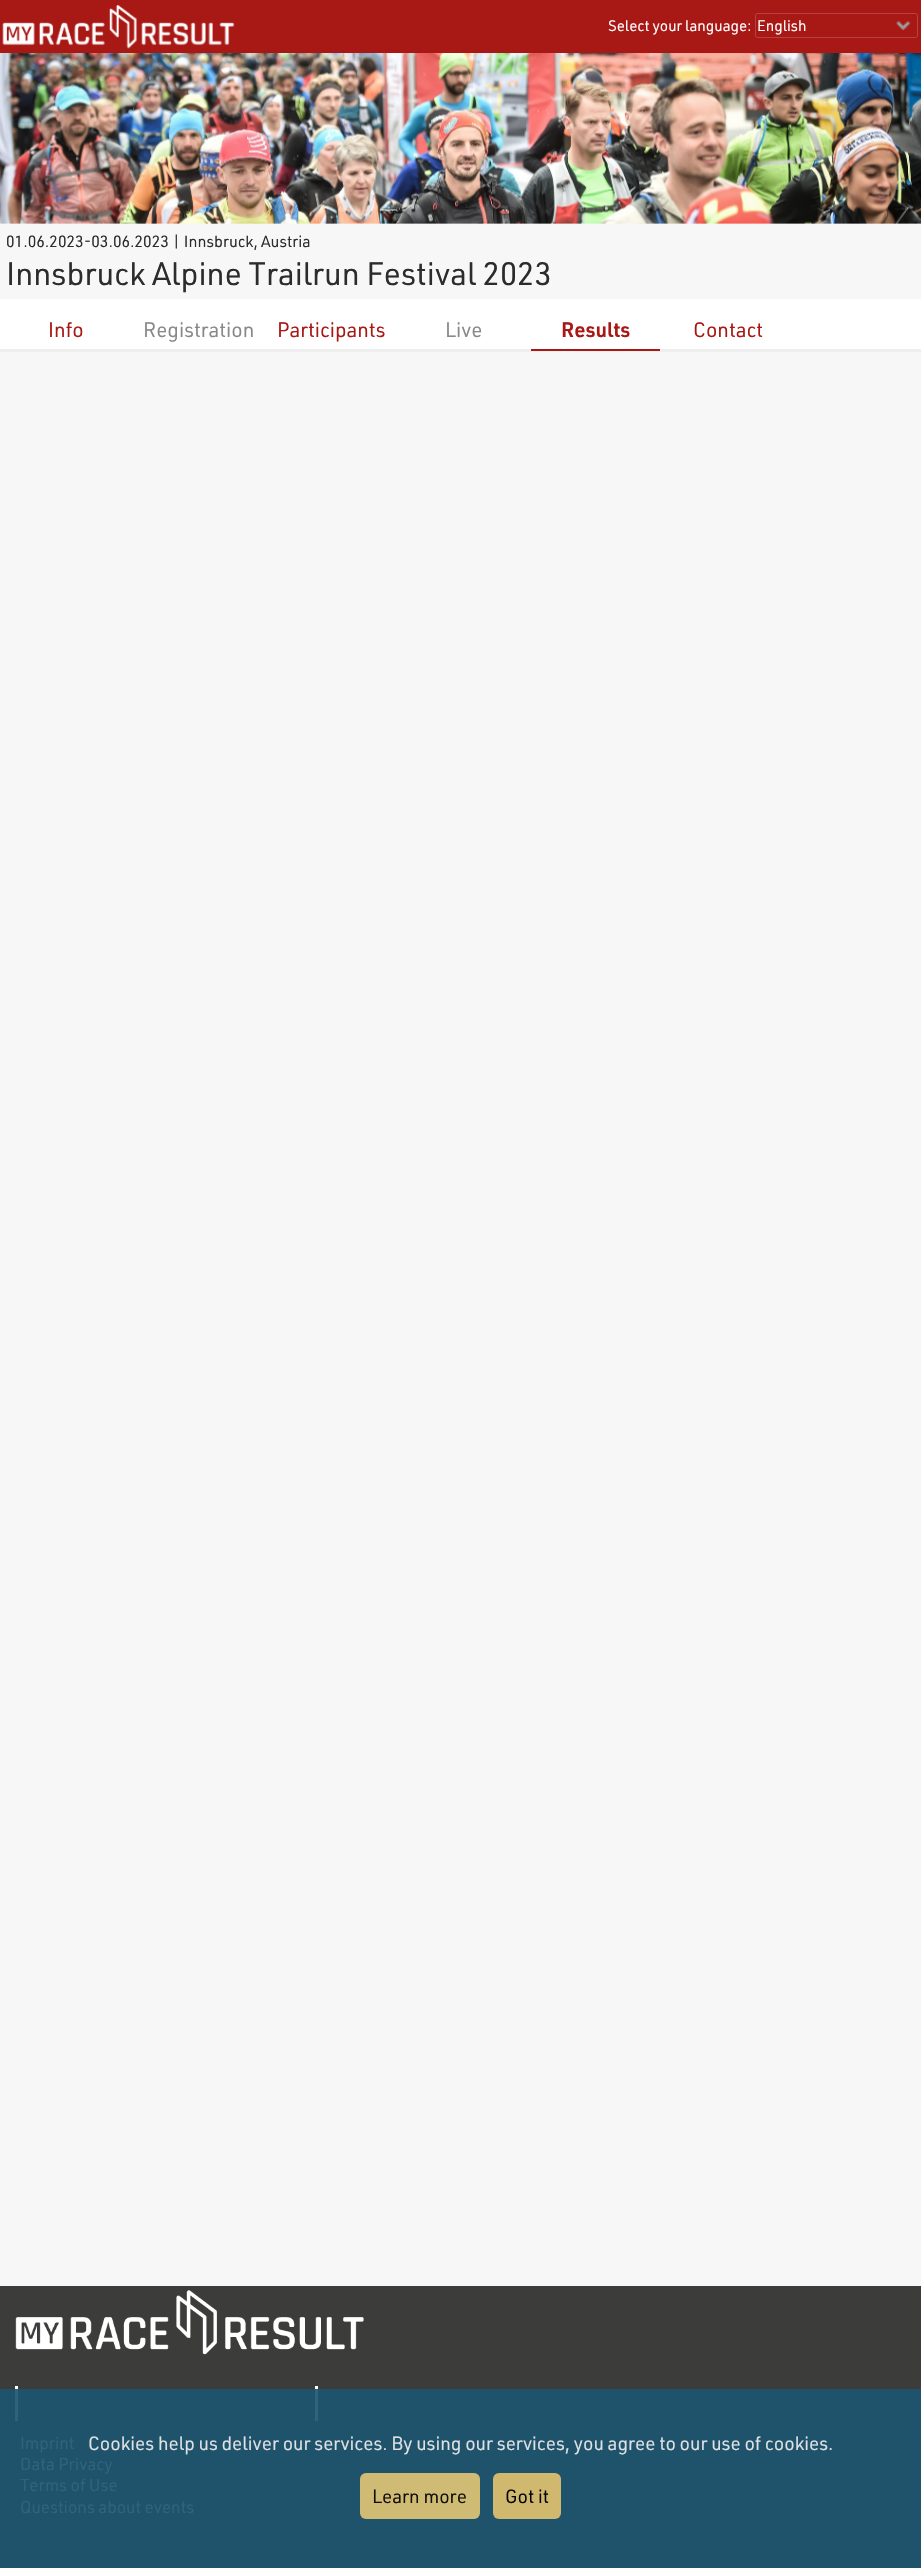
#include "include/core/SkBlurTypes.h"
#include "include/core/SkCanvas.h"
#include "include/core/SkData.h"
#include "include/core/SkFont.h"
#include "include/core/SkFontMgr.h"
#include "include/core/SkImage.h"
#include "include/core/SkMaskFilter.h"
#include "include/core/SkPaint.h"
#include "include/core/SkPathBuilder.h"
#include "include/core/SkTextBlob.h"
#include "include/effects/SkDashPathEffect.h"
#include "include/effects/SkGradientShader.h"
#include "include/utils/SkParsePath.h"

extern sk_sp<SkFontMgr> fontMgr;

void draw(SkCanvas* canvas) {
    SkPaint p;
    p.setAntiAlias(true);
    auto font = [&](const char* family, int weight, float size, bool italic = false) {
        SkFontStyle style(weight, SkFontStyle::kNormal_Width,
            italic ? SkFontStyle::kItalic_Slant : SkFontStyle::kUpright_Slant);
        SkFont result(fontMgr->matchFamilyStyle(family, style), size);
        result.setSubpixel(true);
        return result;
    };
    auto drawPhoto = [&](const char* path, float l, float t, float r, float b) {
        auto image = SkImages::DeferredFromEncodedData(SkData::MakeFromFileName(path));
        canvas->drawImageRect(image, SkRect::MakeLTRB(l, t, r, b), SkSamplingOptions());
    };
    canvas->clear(0xFFF7F7F7);
    p.setColor(0xFFA81815);
    canvas->drawRect(SkRect::MakeLTRB(0, 0, 921, 53), p);
    drawPhoto("media/1.png", 2, 5, 235, 49);
    auto font1 = font("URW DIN", 400, 15);
    p.setColor(0xFFFFFFFF);
    canvas->drawString("Select your language:", 608, 31, font1, p);
    drawPhoto("media/2.png", 896, 21, 911, 31);
    p.setStyle(SkPaint::kStroke_Style);
    p.setStrokeWidth(1);
    p.setColor(0xFFB74340);
    canvas->drawRoundRect(SkRect::MakeLTRB(755.5f, 13.5f, 917.5f, 37.5f), 2, 2, p);
    p.setStyle(SkPaint::kFill_Style);
    p.setColor(0xFFFFFFFF);
    canvas->drawString("English", 757, 31, font1, p);
    drawPhoto("media/3.png", 0, 53, 921, 224);
    auto font2 = font("URW DIN", 400, 15.9f);
    p.setColor(0xFF2C2C2C);
    canvas->drawString("01.06.2023-03.06.2023 | Innsbruck, Austria", 6, 247, font2, p);
    auto font3 = font("URW DIN", 400, 31.9f);
    canvas->drawString("Innsbruck Alpine Trailrun Festival 2023", 6, 285, font3, p);
    p.setColor(0xFFFFFFFF);
    canvas->drawRect(SkRect::MakeLTRB(0, 299, 921, 349), p);
    p.setColor(0xFFEEEEEE);
    canvas->drawRect(SkRect::MakeLTRB(0, 349, 921, 352), p);
    auto font4 = font("URW DIN", 400, 20.5f);
    p.setColor(0xFFA81815);
    canvas->drawString("Info", 48, 337, font4, p);
    p.setColor(0xFF888888);
    canvas->drawString("Registration", 143, 337, font4, p);
    p.setColor(0xFFA81815);
    canvas->drawString("Participants", 277, 337, font4, p);
    p.setColor(0xFF888888);
    canvas->drawString("Live", 445, 337, font4, p);
    p.setColor(0xFFA81815);
    canvas->drawRect(SkRect::MakeLTRB(531, 349, 660, 351), p);
    auto font5 = font("URW DIN", 600, 20.5f);
    canvas->drawString("Results", 561, 337, font5, p);
    canvas->drawString("Contact", 693, 337, font4, p);
    p.setColor(0xFF3C3C3B);
    canvas->drawRect(SkRect::MakeLTRB(0, 2286, 921, 2389), p);
    p.setColor(0xFF1F526B);
    canvas->drawRect(SkRect::MakeLTRB(0, 2389, 921, 2568), p);
    drawPhoto("media/4.png", 15, 2290, 364, 2355);
    {
        const struct { float l, t, r, b; SkColor color; } items[] = {
            {315, 2386, 318, 2389, 0xFFFFFFFF},
            {315, 2389, 318, 2421, 0xFF2F627B},
            {15, 2386, 18, 2389, 0xFFFFFFFF},
            {15, 2389, 18, 2421, 0xFF2F627B},
        };
        for (auto [l, t, r, b, color] : items) {
            p.setColor(color);
            canvas->drawRect(SkRect::MakeLTRB(l, t, r, b), p);
        }
    }
    auto font6 = font("URW DIN", 400, 16.9f);
    {
        const struct { const char* s; float x, y; } items[] = {
            {"Imprint", 20, 2449},
            {"Data Privacy", 20, 2470},
            {"Terms of Use", 20, 2491},
            {"Questions about events", 20, 2513},
        };
        for (auto [s, x, y] : items) {
            canvas->drawString(s, x, y, font6, p);
        }
    }
    auto font7 = font("URW DIN", 400, 18.75f);
    p.setColor(0xFFDEE2E4);
    canvas->drawString("Cookies help us deliver our services. By using our services, you agree to our use of cookies.", 88, 2450, font7, p);
    p.setColor(0xEBDDC374);
    canvas->drawRoundRect(SkRect::MakeLTRB(360, 2473, 480, 2519), 6, 6, p);
    p.setColor(0xFF100F09);
    canvas->drawString("Learn more", 372, 2503, font7, p);
    p.setColor(0xFFD0B86F);
    canvas->drawRoundRect(SkRect::MakeLTRB(493, 2473, 561, 2519), 6, 6, p);
    p.setColor(0xFF050505);
    canvas->drawString("Got it", 505, 2503, font7, p);
}
